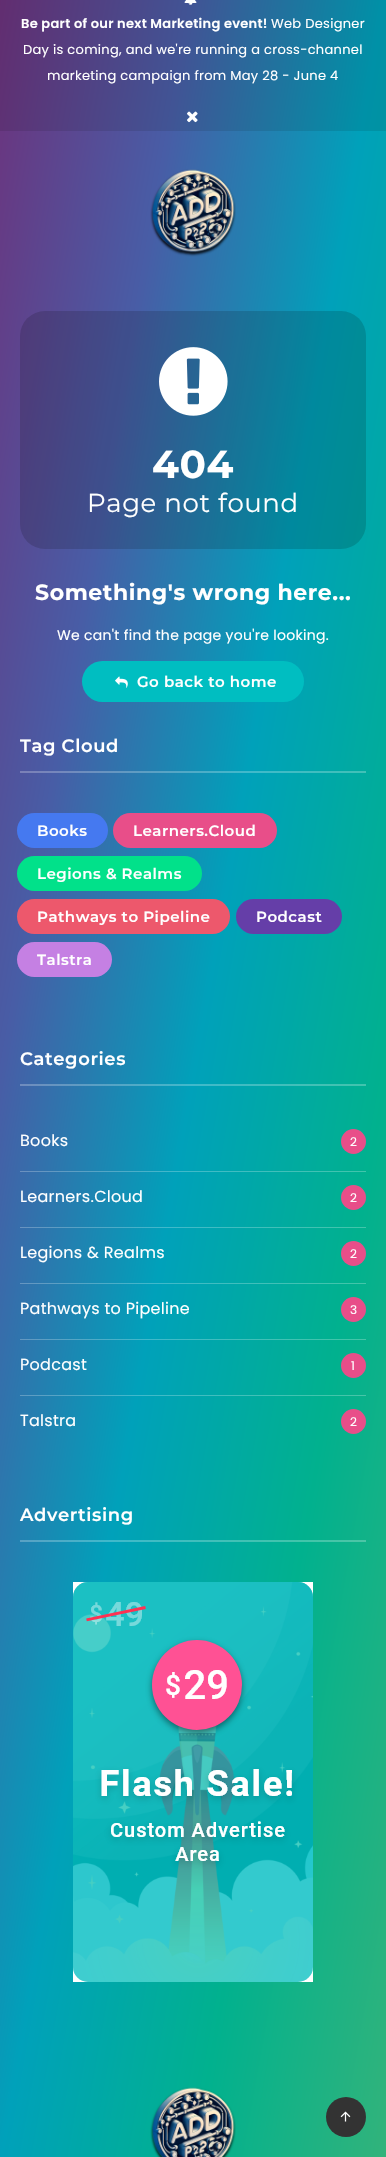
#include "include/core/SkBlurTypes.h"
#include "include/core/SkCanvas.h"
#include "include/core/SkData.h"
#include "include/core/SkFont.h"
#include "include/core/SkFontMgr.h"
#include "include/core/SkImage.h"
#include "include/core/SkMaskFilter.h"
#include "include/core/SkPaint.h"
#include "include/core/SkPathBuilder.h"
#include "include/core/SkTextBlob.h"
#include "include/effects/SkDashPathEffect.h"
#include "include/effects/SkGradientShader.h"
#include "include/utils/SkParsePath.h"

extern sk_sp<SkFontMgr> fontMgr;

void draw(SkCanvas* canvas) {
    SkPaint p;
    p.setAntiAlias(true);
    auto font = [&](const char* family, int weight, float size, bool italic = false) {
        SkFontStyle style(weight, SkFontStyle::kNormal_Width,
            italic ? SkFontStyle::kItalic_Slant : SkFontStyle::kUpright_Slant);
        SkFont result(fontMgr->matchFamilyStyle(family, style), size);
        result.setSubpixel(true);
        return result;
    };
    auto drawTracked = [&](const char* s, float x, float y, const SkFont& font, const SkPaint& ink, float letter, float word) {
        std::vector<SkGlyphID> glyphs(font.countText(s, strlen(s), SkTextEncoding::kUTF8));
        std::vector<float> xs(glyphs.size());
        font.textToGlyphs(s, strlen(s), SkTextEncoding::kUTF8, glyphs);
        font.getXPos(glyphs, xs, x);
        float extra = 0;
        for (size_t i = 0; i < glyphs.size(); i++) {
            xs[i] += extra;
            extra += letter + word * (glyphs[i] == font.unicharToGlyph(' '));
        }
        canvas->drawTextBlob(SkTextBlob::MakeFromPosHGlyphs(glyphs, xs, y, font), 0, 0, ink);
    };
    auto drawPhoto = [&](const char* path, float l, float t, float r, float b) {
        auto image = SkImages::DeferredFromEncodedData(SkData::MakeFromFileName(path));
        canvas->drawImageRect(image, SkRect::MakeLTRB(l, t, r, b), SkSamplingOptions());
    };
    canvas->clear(0xFFFFFFFF);
    {
        const SkColor colors[] = {0xFF6D327C, 0xFF485DA6, 0xFF00A1BA, 0xFF01B18E, 0xFF32B37B};
        const float stops[] = {0, 0.25f, 0.5f, 0.75f, 1};
        const SkPoint ends[] = {{-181, 1012}, {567, 1145}};
        p.setShader(SkGradientShader::MakeLinear(ends, colors, stops, 5, SkTileMode::kClamp));
        p.setAlpha(255);
    }
    canvas->drawRect(SkRect::MakeLTRB(0, 131, 386, 2157), p);
    {
        const SkColor colors[] = {0xFF622D70, 0xFF415495, 0xFF0091A7, 0xFF019F80, 0xFF2DA16F};
        const float stops[] = {0, 0.25f, 0.5f, 0.75f, 1};
        const SkPoint ends[] = {{-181, 1012}, {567, 1145}};
        p.setShader(SkGradientShader::MakeLinear(ends, colors, stops, 5, SkTileMode::kClamp));
        p.setAlpha(255);
    }
    canvas->drawRect(SkRect::MakeLTRB(0, 0, 386, 131), p);
    {
        const SkColor colors[] = {0xFF92659D, 0xFF7686BC, 0xFF40B9CB, 0xFF41C5AA, 0xFF65C69C};
        const float stops[] = {0, 0.25f, 0.5f, 0.75f, 1};
        const SkPoint ends[] = {{-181, 1012}, {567, 1145}};
        p.setShader(SkGradientShader::MakeLinear(ends, colors, stops, 5, SkTileMode::kClamp));
        p.setAlpha(255);
    }
    canvas->drawRect(SkRect::MakeLTRB(20, 1395, 366, 1396), p);
    canvas->drawRect(SkRect::MakeLTRB(20, 1339, 366, 1340), p);
    canvas->drawRect(SkRect::MakeLTRB(20, 1283, 366, 1284), p);
    canvas->drawRect(SkRect::MakeLTRB(20, 1227, 366, 1228), p);
    canvas->drawRect(SkRect::MakeLTRB(20, 1171, 366, 1172), p);
    canvas->drawRect(SkRect::MakeLTRB(20, 1540, 366, 1542), p);
    canvas->drawRect(SkRect::MakeLTRB(20, 1084, 366, 1086), p);
    canvas->drawRect(SkRect::MakeLTRB(20, 771, 366, 773), p);
    drawPhoto("media/1.png", 184, 0, 197, 5);
    auto font1 = font("Poppins", 600, 13);
    p.setShader(nullptr);
    p.setColor(0xFFFFFFFF);
    drawTracked("Be part of our next Marketing event!", 21, 28, font1, p, 0.3f, 0);
    auto font2 = font("Poppins", 400, 13);
    {
        const struct { const char* s; float x, y; } items[] = {
            {"Web Designer", 271, 28},
            {"Day is coming, and we're running a cross-channel", 23, 54},
            {"marketing campaign from May 28 - June 4", 47, 80},
        };
        for (auto [s, x, y] : items) {
            drawTracked(s, x, y, font2, p, 0.3f, 0);
        }
    }
    drawPhoto("media/2.png", 187, 111, 198, 123);
    drawPhoto("media/3.png", 150, 169, 236, 257);
    p.setColor(0x26000000);
    canvas->drawRoundRect(SkRect::MakeLTRB(20, 311, 366, 549), 25, 25, p);
    drawPhoto("media/4.png", 159, 347, 228, 416);
    auto font3 = font("Montserrat", 700, 39);
    p.setColor(0xFFFFFFFF);
    drawTracked("404", 152, 478, font3, p, 0.6f, 0);
    auto font4 = font("Montserrat", 400, 26);
    drawTracked("Page not found", 87, 512, font4, p, 0.6f, 0);
    auto font5 = font("Montserrat", 700, 22);
    drawTracked("Something's wrong here...", 35, 600, font5, p, 0.6f, 0);
    auto font6 = font("Poppins", 400, 14);
    drawTracked("We can't find the page you're looking.", 57, 640, font6, p, 0.3f, 0);
    p.setColor(0xFF00BEC1);
    canvas->drawRoundRect(SkRect::MakeLTRB(82, 661, 304, 702), 20.5f, 20.5f, p);
    drawPhoto("media/5.png", 115, 676, 128, 688);
    auto font7 = font("Montserrat", 600, 15);
    p.setColor(0xFFFFFFFF);
    drawTracked("Go back to home", 137, 687, font7, p, 0.5f, 0);
    auto font8 = font("Montserrat", 600, 18);
    drawTracked("Tag Cloud", 20, 752, font8, p, 0.6f, 0);
    p.setColor(0xFF4579F0);
    canvas->drawRoundRect(SkRect::MakeLTRB(17, 813, 108, 848), 17.5f, 17.5f, p);
    p.setColor(0xFFFFFFFF);
    drawTracked("Books", 37, 836, font7, p, 0.5f, 0);
    p.setColor(0xFFE84E89);
    canvas->drawRoundRect(SkRect::MakeLTRB(113, 813, 277, 848), 17.5f, 17.5f, p);
    p.setColor(0xFFFFFFFF);
    drawTracked("Learners.Cloud", 133, 836, font7, p, 0.5f, 0);
    p.setColor(0xFF01E18A);
    canvas->drawRoundRect(SkRect::MakeLTRB(17, 856, 202, 891), 17.5f, 17.5f, p);
    p.setColor(0xFFFFFFFF);
    drawTracked("Legions & Realms", 37, 879, font7, p, 0.5f, 0);
    p.setColor(0xFFED586C);
    canvas->drawRoundRect(SkRect::MakeLTRB(17, 899, 230, 934), 17.5f, 17.5f, p);
    p.setColor(0xFFFFFFFF);
    drawTracked("Pathways to Pipeline", 37, 922, font7, p, 0.5f, 0);
    p.setColor(0xFF653EA8);
    canvas->drawRoundRect(SkRect::MakeLTRB(236, 899, 342, 934), 17.5f, 17.5f, p);
    p.setColor(0xFFFFFFFF);
    drawTracked("Podcast", 256, 922, font7, p, 0.5f, 0);
    p.setColor(0xFFC580E3);
    canvas->drawRoundRect(SkRect::MakeLTRB(17, 942, 112, 977), 17.5f, 17.5f, p);
    p.setColor(0xFFFFFFFF);
    drawTracked("Talstra", 37, 965, font7, p, 0.5f, 0);
    drawTracked("Categories", 20, 1065, font8, p, 0.6f, 0);
    auto font9 = font("Poppins", 400, 16);
    drawTracked("Books", 20, 1146, font9, p, 0.3f, 0);
    p.setColor(0xFFE84E89);
    canvas->drawCircle(353.5f, 1141.5f, 12.5f, p);
    auto font10 = font("Poppins", 400, 12);
    p.setColor(0xFFFFFFFF);
    drawTracked("2", 350, 1146, font10, p, 0.3f, 0);
    drawTracked("Learners.Cloud", 20, 1202, font9, p, 0.3f, 0);
    p.setColor(0xFFE84E89);
    canvas->drawCircle(353.5f, 1197.5f, 12.5f, p);
    p.setColor(0xFFFFFFFF);
    drawTracked("2", 350, 1202, font10, p, 0.3f, 0);
    drawTracked("Legions & Realms", 20, 1258, font9, p, 0.3f, 0);
    p.setColor(0xFFE84E89);
    canvas->drawCircle(353.5f, 1253.5f, 12.5f, p);
    p.setColor(0xFFFFFFFF);
    drawTracked("2", 350, 1258, font10, p, 0.3f, 0);
    drawTracked("Pathways to Pipeline", 20, 1314, font9, p, 0.3f, 0);
    p.setColor(0xFFE84E89);
    canvas->drawCircle(353.5f, 1309.5f, 12.5f, p);
    p.setColor(0xFFFFFFFF);
    drawTracked("3", 350, 1314, font10, p, 0.3f, 0);
    drawTracked("Podcast", 20, 1370, font9, p, 0.3f, 0);
    p.setColor(0xFFE84E89);
    canvas->drawCircle(353.5f, 1365.5f, 12.5f, p);
    p.setColor(0xFFFFFFFF);
    drawTracked("1", 351, 1370, font10, p, 0.3f, 0);
    drawTracked("Talstra", 20, 1426, font9, p, 0.3f, 0);
    p.setColor(0xFFE84E89);
    canvas->drawCircle(353.5f, 1421.5f, 12.5f, p);
    p.setColor(0xFFFFFFFF);
    drawTracked("2", 350, 1426, font10, p, 0.3f, 0);
    drawTracked("Advertising", 20, 1521, font8, p, 0.6f, 0);
    drawPhoto("media/6.png", 73, 1582, 313, 1982);
    drawPhoto("media/7.png", 150, 2087, 236, 2157);
    p.setColor(0xFF333333);
    canvas->drawCircle(346, 2117, 20, p);
    drawPhoto("media/8.png", 340, 2111, 351, 2122);
}
